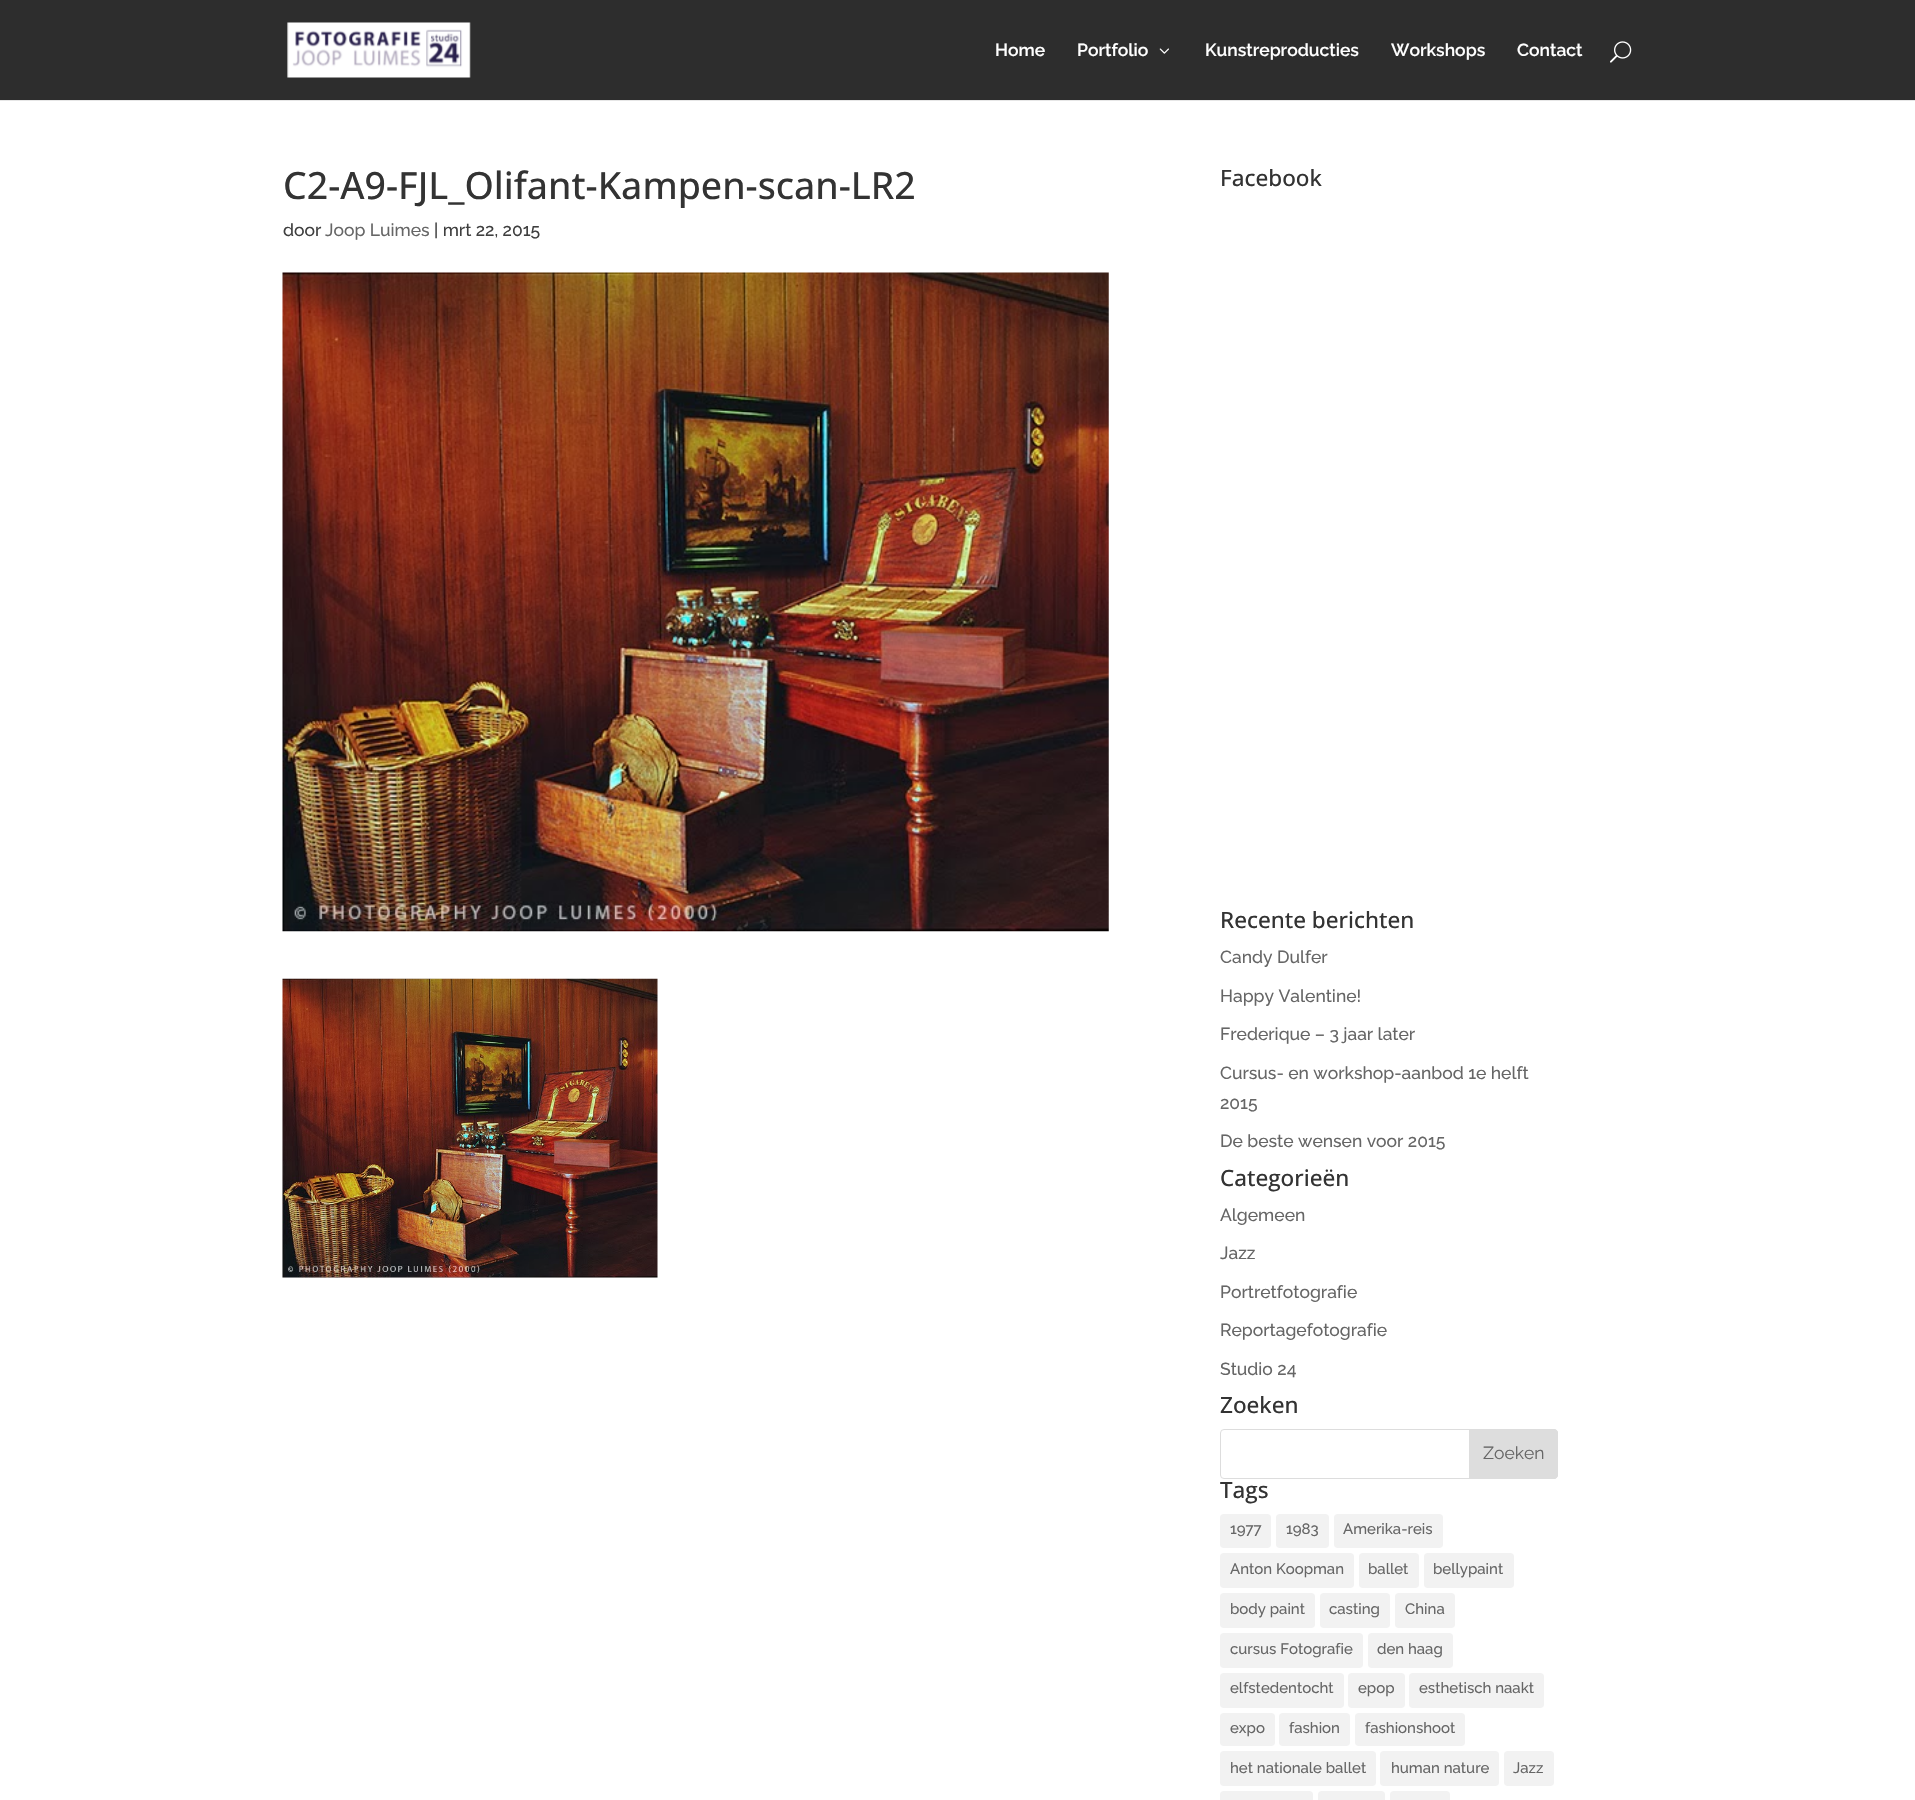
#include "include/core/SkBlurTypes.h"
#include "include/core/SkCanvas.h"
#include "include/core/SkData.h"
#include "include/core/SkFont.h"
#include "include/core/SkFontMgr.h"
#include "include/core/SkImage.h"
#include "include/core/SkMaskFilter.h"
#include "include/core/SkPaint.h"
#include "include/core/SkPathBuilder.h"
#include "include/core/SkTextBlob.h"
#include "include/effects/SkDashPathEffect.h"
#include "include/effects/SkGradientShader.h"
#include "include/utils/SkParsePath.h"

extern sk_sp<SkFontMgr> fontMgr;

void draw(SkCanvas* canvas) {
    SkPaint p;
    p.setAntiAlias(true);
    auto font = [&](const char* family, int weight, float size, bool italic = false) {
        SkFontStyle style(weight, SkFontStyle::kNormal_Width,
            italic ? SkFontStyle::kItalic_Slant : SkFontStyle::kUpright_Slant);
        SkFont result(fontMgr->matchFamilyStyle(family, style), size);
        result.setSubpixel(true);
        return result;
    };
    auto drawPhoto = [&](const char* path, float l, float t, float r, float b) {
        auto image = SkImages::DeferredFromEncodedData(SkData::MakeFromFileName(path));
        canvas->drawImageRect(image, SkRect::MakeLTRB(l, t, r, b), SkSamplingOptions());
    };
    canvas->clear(0xFFFFFFFF);
    p.setColor(0xFFE6E6E6);
    canvas->drawRect(SkRect::MakeLTRB(0, 100, 1915, 101), p);
    p.setColor(0xFF2D2D2D);
    canvas->drawRect(SkRect::MakeLTRB(0, 0, 1915, 100), p);
    drawPhoto("media/1.png", 287, 22, 471, 78);
    auto font1 = font("Raleway", 600, 17.5f);
    p.setColor(0xFFFFFFFF);
    canvas->drawString("Home", 995, 56, font1, p);
    canvas->drawString("Portfolio", 1077, 56, font1, p);
    drawPhoto("media/2.png", 1159, 48, 1169, 54);
    {
        const struct { const char* s; float x, y; } items[] = {
            {"Kunstreproducties", 1205, 56},
            {"Workshops", 1391, 56},
            {"Contact", 1517, 56},
        };
        for (auto [s, x, y] : items) {
            canvas->drawString(s, x, y, font1, p);
        }
    }
    drawPhoto("media/3.png", 1610, 41, 1632, 63);
    auto font2 = font("Open Sans", 500, 37.5f);
    p.setColor(0xFF333333);
    canvas->drawString("C2-A9-FJL_Olifant-Kampen-scan-LR2", 283, 199, font2, p);
    auto font3 = font("Raleway", 500, 17.5f);
    p.setColor(0xFF3F3F3F);
    canvas->drawString("door", 283, 236, font3, p);
    p.setColor(0xFF666666);
    canvas->drawString("Joop Luimes", 325, 236, font3, p);
    p.setColor(0xFF3F3F3F);
    canvas->drawString("| mrt 22, 2015", 434, 236, font3, p);
    drawPhoto("media/4.png", 282, 272, 1109, 932);
    drawPhoto("media/5.png", 282, 978, 658, 1278);
    auto font4 = font("Open Sans", 500, 22.5f);
    p.setColor(0xFF333333);
    canvas->drawString("Facebook", 1220, 186, font4, p);
    canvas->drawString("Recente berichten", 1220, 928, font4, p);
    p.setColor(0xFF666666);
    {
        const struct { const char* s; float x, y; } items[] = {
            {"Candy Dulfer", 1220, 963},
            {"Happy Valentine!", 1220, 1002},
            {"Frederique – 3 jaar later", 1220, 1040},
            {"Cursus- en workshop-aanbod 1e helft", 1220, 1079},
            {"2015", 1220, 1109},
            {"De beste wensen voor 2015", 1220, 1147},
        };
        for (auto [s, x, y] : items) {
            canvas->drawString(s, x, y, font3, p);
        }
    }
    p.setColor(0xFF333333);
    canvas->drawString("Categorieën", 1220, 1186, font4, p);
    p.setColor(0xFF666666);
    {
        const struct { const char* s; float x, y; } items[] = {
            {"Algemeen", 1220, 1221},
            {"Jazz", 1220, 1259},
            {"Portretfotografie", 1220, 1298},
            {"Reportagefotografie", 1220, 1336},
            {"Studio 24", 1220, 1375},
        };
        for (auto [s, x, y] : items) {
            canvas->drawString(s, x, y, font3, p);
        }
    }
    p.setColor(0xFF333333);
    canvas->drawString("Zoeken", 1220, 1413, font4, p);
    p.setStyle(SkPaint::kStroke_Style);
    p.setStrokeWidth(1);
    p.setColor(0xFFDDDDDD);
    canvas->drawRoundRect(SkRect::MakeLTRB(1220.5f, 1429.5f, 1557.5f, 1478.5f), 3.5f, 3.5f, p);
    p.setStyle(SkPaint::kFill_Style);
    canvas->drawPath(SkPathBuilder().moveTo(1469.5f, 1429.5f).lineTo(1554, 1429.5f).cubicTo(1556, 1429.5f, 1557.5f, 1431, 1557.5f, 1433).lineTo(1557.5f, 1475).cubicTo(1557.5f, 1477, 1556, 1478.5f, 1554, 1478.5f).lineTo(1469.5f, 1478.5f).close().detach(), p);
    p.setStyle(SkPaint::kStroke_Style);
    canvas->drawPath(SkPathBuilder().moveTo(1469.5f, 1429.5f).lineTo(1554, 1429.5f).cubicTo(1556, 1429.5f, 1557.5f, 1431, 1557.5f, 1433).lineTo(1557.5f, 1475).cubicTo(1557.5f, 1477, 1556, 1478.5f, 1554, 1478.5f).lineTo(1469.5f, 1478.5f).close().detach(), p);
    auto font5 = font("Raleway", 400, 17.5f);
    p.setStyle(SkPaint::kFill_Style);
    p.setColor(0xFF666666);
    canvas->drawString("Zoeken", 1483, 1459, font5, p);
    p.setColor(0xFF333333);
    canvas->drawString("Tags", 1220, 1498, font4, p);
    p.setColor(0xFFF2F2F2);
    canvas->drawRoundRect(SkRect::MakeLTRB(1220, 1514, 1271, 1548), 4, 4, p);
    auto font6 = font("Raleway", 500, 15);
    p.setColor(0xFF666666);
    canvas->drawString("1977", 1230, 1534, font6, p);
    p.setColor(0xFFF2F2F2);
    canvas->drawRoundRect(SkRect::MakeLTRB(1276, 1514, 1329, 1548), 4, 4, p);
    p.setColor(0xFF666666);
    canvas->drawString("1983", 1286, 1534, font6, p);
    p.setColor(0xFFF2F2F2);
    canvas->drawRoundRect(SkRect::MakeLTRB(1334, 1514, 1443, 1548), 4, 4, p);
    p.setColor(0xFF666666);
    canvas->drawString("Amerika-reis", 1343, 1534, font6, p);
    p.setColor(0xFFF2F2F2);
    canvas->drawRoundRect(SkRect::MakeLTRB(1220, 1553, 1354, 1588), 4, 4, p);
    p.setColor(0xFF666666);
    canvas->drawString("Anton Koopman", 1230, 1574, font6, p);
    p.setColor(0xFFF2F2F2);
    canvas->drawRoundRect(SkRect::MakeLTRB(1359, 1553, 1419, 1588), 4, 4, p);
    p.setColor(0xFF666666);
    canvas->drawString("ballet", 1368, 1574, font6, p);
    p.setColor(0xFFF2F2F2);
    canvas->drawRoundRect(SkRect::MakeLTRB(1424, 1553, 1514, 1588), 4, 4, p);
    p.setColor(0xFF666666);
    canvas->drawString("bellypaint", 1433, 1574, font6, p);
    p.setColor(0xFFF2F2F2);
    canvas->drawRoundRect(SkRect::MakeLTRB(1220, 1593, 1315, 1628), 4, 4, p);
    p.setColor(0xFF666666);
    canvas->drawString("body paint", 1230, 1614, font6, p);
    p.setColor(0xFFF2F2F2);
    canvas->drawRoundRect(SkRect::MakeLTRB(1320, 1593, 1390, 1628), 4, 4, p);
    p.setColor(0xFF666666);
    canvas->drawString("casting", 1329, 1614, font6, p);
    p.setColor(0xFFF2F2F2);
    canvas->drawRoundRect(SkRect::MakeLTRB(1395, 1593, 1455, 1628), 4, 4, p);
    p.setColor(0xFF666666);
    canvas->drawString("China", 1405, 1614, font6, p);
    p.setColor(0xFFF2F2F2);
    canvas->drawRoundRect(SkRect::MakeLTRB(1220, 1633, 1363, 1668), 4, 4, p);
    p.setColor(0xFF666666);
    canvas->drawString("cursus Fotografie", 1230, 1654, font6, p);
    p.setColor(0xFFF2F2F2);
    canvas->drawRoundRect(SkRect::MakeLTRB(1368, 1633, 1453, 1668), 4, 4, p);
    p.setColor(0xFF666666);
    canvas->drawString("den haag", 1377, 1654, font6, p);
    p.setColor(0xFFF2F2F2);
    canvas->drawRoundRect(SkRect::MakeLTRB(1220, 1673, 1344, 1708), 4, 4, p);
    p.setColor(0xFF666666);
    canvas->drawString("elfstedentocht", 1230, 1693, font6, p);
    p.setColor(0xFFF2F2F2);
    canvas->drawRoundRect(SkRect::MakeLTRB(1348, 1673, 1405, 1708), 4, 4, p);
    p.setColor(0xFF666666);
    canvas->drawString("epop", 1358, 1693, font6, p);
    p.setColor(0xFFF2F2F2);
    canvas->drawRoundRect(SkRect::MakeLTRB(1409, 1673, 1544, 1708), 4, 4, p);
    p.setColor(0xFF666666);
    canvas->drawString("esthetisch naakt", 1419, 1693, font6, p);
    p.setColor(0xFFF2F2F2);
    canvas->drawRoundRect(SkRect::MakeLTRB(1220, 1713, 1275, 1746), 4, 4, p);
    p.setColor(0xFF666666);
    canvas->drawString("expo", 1230, 1733, font6, p);
    p.setColor(0xFFF2F2F2);
    canvas->drawRoundRect(SkRect::MakeLTRB(1279, 1713, 1350, 1746), 4, 4, p);
    p.setColor(0xFF666666);
    canvas->drawString("fashion", 1289, 1733, font6, p);
    p.setColor(0xFFF2F2F2);
    canvas->drawRoundRect(SkRect::MakeLTRB(1355, 1713, 1465, 1746), 4, 4, p);
    p.setColor(0xFF666666);
    canvas->drawString("fashionshoot", 1365, 1733, font6, p);
    p.setColor(0xFFF2F2F2);
    canvas->drawRoundRect(SkRect::MakeLTRB(1220, 1751, 1376, 1786), 4, 4, p);
    p.setColor(0xFF666666);
    canvas->drawString("het nationale ballet", 1230, 1773, font6, p);
    p.setColor(0xFFF2F2F2);
    canvas->drawRoundRect(SkRect::MakeLTRB(1380, 1751, 1499, 1786), 4, 4, p);
    p.setColor(0xFF666666);
    canvas->drawString("human nature", 1391, 1773, font6, p);
    p.setColor(0xFFF2F2F2);
    canvas->drawRoundRect(SkRect::MakeLTRB(1504, 1751, 1554, 1786), 4, 4, p);
    p.setColor(0xFF666666);
    canvas->drawString("Jazz", 1513, 1773, font6, p);
    p.setColor(0xFFF2F2F2);
    canvas->drawRoundRect(SkRect::MakeLTRB(1220, 1791, 1313, 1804), 4, 4, p);
    canvas->drawRoundRect(SkRect::MakeLTRB(1318, 1791, 1385, 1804), 4, 4, p);
    canvas->drawRoundRect(SkRect::MakeLTRB(1390, 1791, 1450, 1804), 4, 4, p);
}
